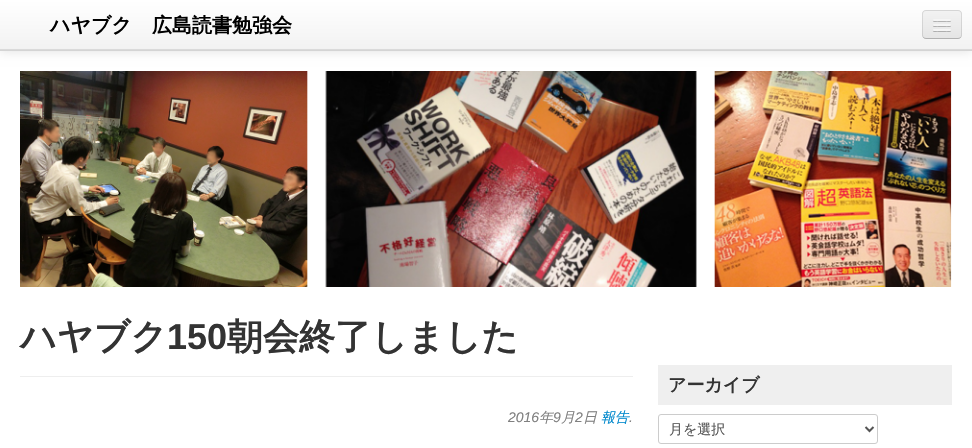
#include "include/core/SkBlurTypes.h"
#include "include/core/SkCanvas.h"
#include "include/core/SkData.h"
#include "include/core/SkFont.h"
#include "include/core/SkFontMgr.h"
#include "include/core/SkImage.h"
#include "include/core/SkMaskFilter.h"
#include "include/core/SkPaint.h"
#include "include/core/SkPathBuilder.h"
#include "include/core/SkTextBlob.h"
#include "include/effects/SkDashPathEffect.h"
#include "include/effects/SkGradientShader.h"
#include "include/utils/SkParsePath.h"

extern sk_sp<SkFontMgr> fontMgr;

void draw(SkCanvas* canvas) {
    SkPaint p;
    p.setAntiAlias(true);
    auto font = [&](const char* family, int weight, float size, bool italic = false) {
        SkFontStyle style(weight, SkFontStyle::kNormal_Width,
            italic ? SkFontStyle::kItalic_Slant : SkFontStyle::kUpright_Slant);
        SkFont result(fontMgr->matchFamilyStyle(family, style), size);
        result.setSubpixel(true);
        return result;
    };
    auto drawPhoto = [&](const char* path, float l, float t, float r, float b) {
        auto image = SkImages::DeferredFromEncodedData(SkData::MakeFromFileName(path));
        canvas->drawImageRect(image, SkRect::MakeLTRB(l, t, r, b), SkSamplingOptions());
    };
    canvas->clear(0xFFFFFFFF);
    p.setColor(0x1A000000);
    p.setMaskFilter(SkMaskFilter::MakeBlur(kNormal_SkBlurStyle, 5));
    canvas->drawRect(SkRect::MakeLTRB(0, 1, 972, 52), p);
    p.setMaskFilter(nullptr);
    {
        const SkColor colors[] = {0xFFFFFFFF, 0xFFF2F2F2};
        const float stops[] = {0, 1};
        const SkPoint ends[] = {{486, 0}, {486, 50}};
        p.setShader(SkGradientShader::MakeLinear(ends, colors, stops, 2, SkTileMode::kClamp));
        p.setAlpha(255);
    }
    canvas->drawRect(SkRect::MakeLTRB(0, 0, 972, 49), p);
    p.setShader(nullptr);
    p.setColor(0xFFDADADA);
    canvas->drawRect(SkRect::MakeLTRB(0, 49, 972, 50), p);
    p.setColor(0xFFD4D4D4);
    canvas->drawRect(SkRect::MakeLTRB(0, 50, 972, 51), p);
    auto font1 = font("WenQuanYi Zen Hei", 700, 20);
    p.setColor(0xFF000000);
    canvas->drawString("ハヤブク　広島読書勉強会", 50, 32, font1, p);
    p.setColor(0xFFEDEDED);
    canvas->drawRoundRect(SkRect::MakeLTRB(922, 10, 962, 39), 4, 4, p);
    canvas->save();
    canvas->clipPath(SkPathBuilder().moveTo(926, 10).lineTo(958, 10).cubicTo(960, 10, 962, 12, 962, 14).lineTo(962, 35).cubicTo(962, 37, 960, 39, 958, 39).lineTo(926, 39).cubicTo(924, 39, 922, 37, 922, 35).lineTo(922, 14).cubicTo(922, 12, 924, 10, 926, 10).close().detach(), true);
    {
        const SkColor colors[] = {0xFFF2F2F2, 0xFFE5E5E5};
        const float stops[] = {0, 1};
        const SkPoint ends[] = {{942, 11}, {942, 38}};
        p.setShader(SkGradientShader::MakeLinear(ends, colors, stops, 2, SkTileMode::kClamp));
        p.setAlpha(255);
    }
    canvas->drawRect(SkRect::MakeLTRB(922, 11, 962, 38), p);
    canvas->restore();
    p.setStyle(SkPaint::kStroke_Style);
    p.setStrokeWidth(1);
    p.setShader(nullptr);
    p.setColor(0x40000000);
    canvas->drawPath(SkPathBuilder().moveTo(960.5f, 37.5f).cubicTo(960, 38, 959, 38.5f, 958, 38.5f).lineTo(926, 38.5f).cubicTo(925, 38.5f, 924, 38, 923.5f, 37.5f).detach(), p);
    p.setColor(0x1A000000);
    canvas->drawPath(SkPathBuilder().moveTo(923.5f, 37.5f).cubicTo(923, 37, 922.5f, 36, 922.5f, 35).lineTo(922.5f, 14).cubicTo(922.5f, 13, 923, 12, 923.5f, 11.5f).cubicTo(924, 11, 925, 10.5f, 926, 10.5f).lineTo(958, 10.5f).cubicTo(959, 10.5f, 960, 11, 960.5f, 11.5f).cubicTo(961, 12, 961.5f, 13, 961.5f, 14).lineTo(961.5f, 35).cubicTo(961.5f, 36, 961, 37, 960.5f, 37.5f).detach(), p);
    p.setStyle(SkPaint::kFill_Style);
    p.setColor(0xFFB2B2B2);
    canvas->drawPath(SkPathBuilder().moveTo(933, 20.5f).cubicTo(932, 22.5f, 936.5f, 22, 936.5f, 22).lineTo(947.5f, 22).cubicTo(947.5f, 22, 952, 22.5f, 951, 20.5f).cubicTo(950, 21.5f, 943.5f, 21, 942, 21).cubicTo(940.5f, 21, 934, 21.5f, 933, 20.5f).close().detach(), p);
    p.setColor(0xFFF5F5F5);
    canvas->drawRoundRect(SkRect::MakeLTRB(933, 19, 951, 21), 1, 1, p);
    p.setColor(0xFFB0B0B0);
    canvas->drawPath(SkPathBuilder().moveTo(933, 25.5f).cubicTo(932, 27.5f, 936.5f, 27, 936.5f, 27).lineTo(947.5f, 27).cubicTo(947.5f, 27, 952, 27.5f, 951, 25.5f).cubicTo(950, 26.5f, 943.5f, 26, 942, 26).cubicTo(940.5f, 26, 934, 26.5f, 933, 25.5f).close().detach(), p);
    p.setColor(0xFFF5F5F5);
    canvas->drawRoundRect(SkRect::MakeLTRB(933, 24, 951, 26), 1, 1, p);
    p.setColor(0xFFAEAEAE);
    canvas->drawPath(SkPathBuilder().moveTo(933, 30.5f).cubicTo(932, 32.5f, 936.5f, 32, 936.5f, 32).lineTo(947.5f, 32).cubicTo(947.5f, 32, 952, 32.5f, 951, 30.5f).cubicTo(950, 31.5f, 943.5f, 31, 942, 31).cubicTo(940.5f, 31, 934, 31.5f, 933, 30.5f).close().detach(), p);
    p.setColor(0xFFF5F5F5);
    canvas->drawRoundRect(SkRect::MakeLTRB(933, 29, 951, 31), 1, 1, p);
    drawPhoto("media/1.png", 20, 71, 952, 287);
    p.setColor(0xFFEEEEEE);
    canvas->drawRect(SkRect::MakeLTRB(20, 376, 633, 377), p);
    auto font2 = font("WenQuanYi Zen Hei", 700, 36);
    p.setColor(0xFF333333);
    canvas->drawString("ハヤブク", 20, 349, font2, p);
    auto font3 = font("Liberation Sans", 700, 36);
    canvas->drawString("150", 167, 349, font3, p);
    canvas->drawString("朝会終了しました", 227, 349, font2, p);
    auto font4 = font("Liberation Sans", 400, 14, true);
    p.setColor(0xFF808080);
    canvas->drawString("2016", 508, 422, font4, p);
    auto font5 = font("WenQuanYi Zen Hei", 500, 14, true);
    canvas->drawString("年", 539, 422, font5, p);
    canvas->drawString("9", 553, 422, font4, p);
    canvas->drawString("月", 561, 422, font5, p);
    canvas->drawString("2", 575, 422, font4, p);
    canvas->drawString("日", 583, 422, font5, p);
    p.setColor(0xFF0088CC);
    canvas->drawString("報告", 601, 422, font5, p);
    p.setColor(0xFF808080);
    canvas->drawString(".", 629, 422, font4, p);
    p.setColor(0xFFEFEFEF);
    canvas->drawRect(SkRect::MakeLTRB(658, 365, 952, 405), p);
    auto font6 = font("WenQuanYi Zen Hei", 700, 18);
    p.setColor(0xFF333333);
    canvas->drawString("アーカイブ", 668, 391, font6, p);
    p.setStyle(SkPaint::kStroke_Style);
    p.setColor(0xFFCCCCCC);
    canvas->drawRoundRect(SkRect::MakeLTRB(658.5f, 414.5f, 877.5f, 443.5f), 2.5f, 2.5f, p);
    p.setStrokeWidth(2);
    p.setColor(0xFF555555);
    canvas->drawPath(SkPathBuilder().moveTo(865.5f, 427).lineTo(869.5f, 431).lineTo(873.5f, 427).detach(), p);
    auto font7 = font("WenQuanYi Zen Hei", 500, 14);
    p.setStyle(SkPaint::kFill_Style);
    canvas->drawString("月を選択", 669, 434, font7, p);
}
